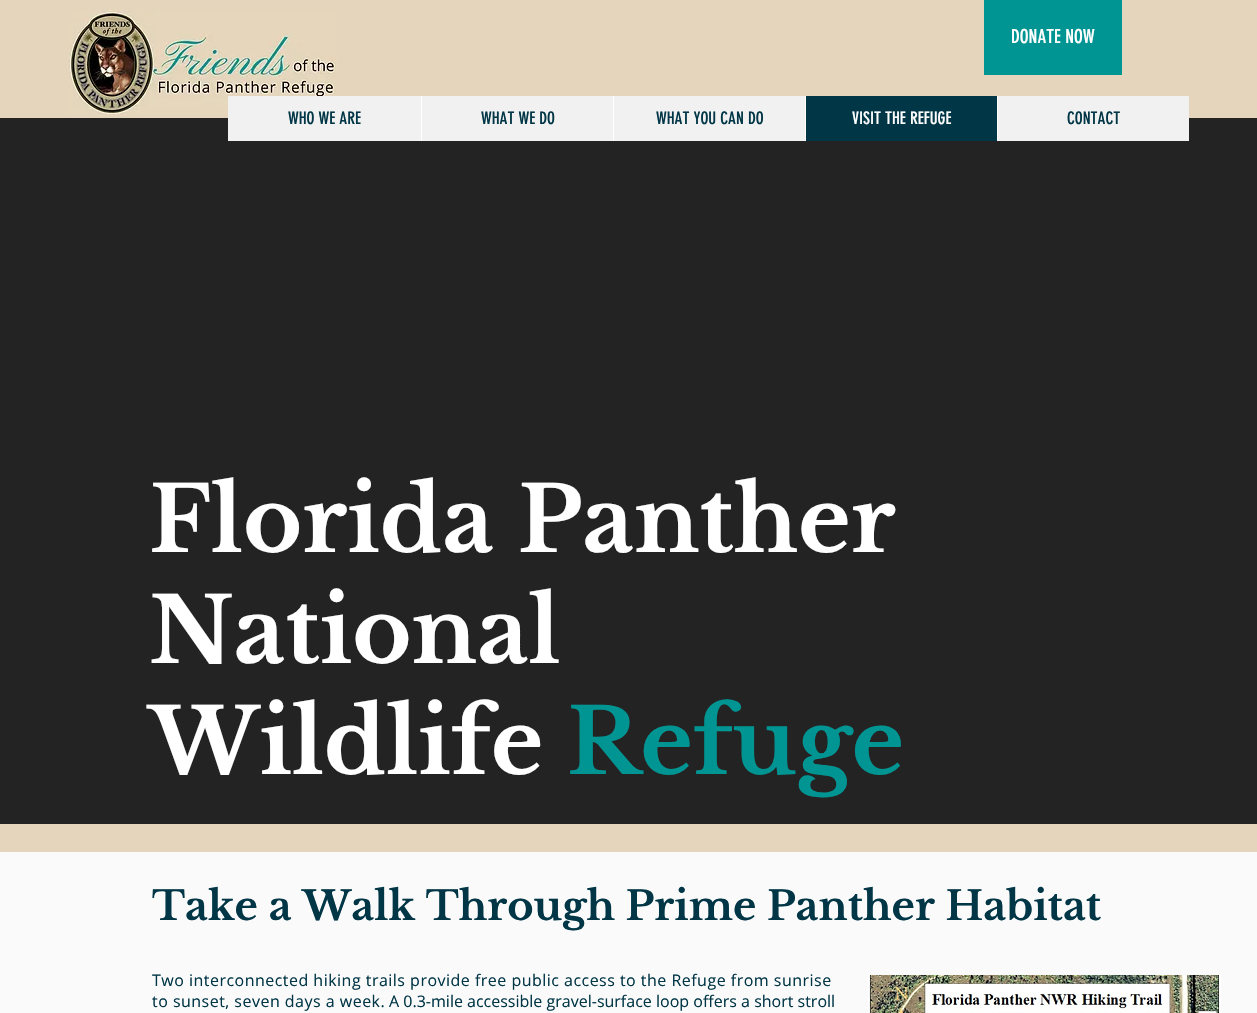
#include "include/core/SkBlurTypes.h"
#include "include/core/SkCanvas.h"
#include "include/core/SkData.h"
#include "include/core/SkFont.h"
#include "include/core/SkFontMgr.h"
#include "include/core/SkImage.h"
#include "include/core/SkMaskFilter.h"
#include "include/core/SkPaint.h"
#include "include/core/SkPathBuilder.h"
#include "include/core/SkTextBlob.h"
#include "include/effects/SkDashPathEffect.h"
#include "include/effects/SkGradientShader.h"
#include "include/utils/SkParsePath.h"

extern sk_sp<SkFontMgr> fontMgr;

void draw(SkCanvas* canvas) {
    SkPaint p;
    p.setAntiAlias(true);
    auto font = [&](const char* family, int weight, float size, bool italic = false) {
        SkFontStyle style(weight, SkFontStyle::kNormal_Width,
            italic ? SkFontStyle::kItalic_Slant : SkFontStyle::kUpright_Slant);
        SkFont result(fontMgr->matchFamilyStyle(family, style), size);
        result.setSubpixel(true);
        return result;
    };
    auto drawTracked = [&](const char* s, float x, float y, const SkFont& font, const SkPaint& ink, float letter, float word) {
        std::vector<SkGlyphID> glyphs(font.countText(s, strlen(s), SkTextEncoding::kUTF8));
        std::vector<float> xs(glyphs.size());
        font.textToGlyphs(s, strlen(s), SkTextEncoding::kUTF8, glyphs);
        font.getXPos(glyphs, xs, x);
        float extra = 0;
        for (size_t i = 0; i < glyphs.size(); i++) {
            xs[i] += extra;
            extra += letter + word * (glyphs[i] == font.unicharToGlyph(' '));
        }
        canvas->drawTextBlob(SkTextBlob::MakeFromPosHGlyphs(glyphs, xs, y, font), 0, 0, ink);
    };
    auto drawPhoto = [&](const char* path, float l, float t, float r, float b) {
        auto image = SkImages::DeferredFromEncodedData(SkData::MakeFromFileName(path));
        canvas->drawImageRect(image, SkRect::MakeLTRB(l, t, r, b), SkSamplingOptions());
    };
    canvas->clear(0xFFE5D5BC);
    drawPhoto("media/1.png", 69, 10, 337, 114);
    p.setColor(0xFF009492);
    canvas->drawRect(SkRect::MakeLTRB(984, 0, 1122, 75), p);
    auto font1 = font("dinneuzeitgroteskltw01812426", 400, 19);
    p.setColor(0xFFFFFFFF);
    canvas->drawString("DONATE NOW", 1011, 43, font1, p);
    p.setColor(0xFF242323);
    canvas->drawRect(SkRect::MakeLTRB(0, 118, 1257, 824), p);
    p.setColor(0xFFF1F1F1);
    canvas->drawRect(SkRect::MakeLTRB(228, 96, 1189, 141), p);
    auto font2 = font("dinneuzeitgroteskltw01812426", 400, 17);
    p.setColor(0xFF013646);
    canvas->drawString("WHO WE ARE", 288, 124, font2, p);
    p.setColor(0xFFFFFFFF);
    canvas->drawRect(SkRect::MakeLTRB(421, 96, 422, 141), p);
    p.setColor(0xFF013646);
    canvas->drawString("WHAT WE DO", 481, 124, font2, p);
    p.setColor(0xFFFFFFFF);
    canvas->drawRect(SkRect::MakeLTRB(613, 96, 614, 141), p);
    p.setColor(0xFF013646);
    canvas->drawString("WHAT YOU CAN DO", 656, 124, font2, p);
    canvas->drawRect(SkRect::MakeLTRB(806, 96, 997, 141), p);
    p.setColor(0xFFFFFFFF);
    canvas->drawRect(SkRect::MakeLTRB(805, 96, 806, 141), p);
    canvas->drawString("VISIT THE REFUGE", 852, 124, font2, p);
    canvas->drawRect(SkRect::MakeLTRB(997, 96, 998, 141), p);
    p.setColor(0xFF013646);
    canvas->drawString("CONTACT", 1067, 124, font2, p);
    auto font3 = font("Libre Baskerville", 700, 90);
    p.setColor(0xFFFFFFFF);
    {
        const struct { const char* s; float x, y; } items[] = {
            {"Florida Panther", 149, 552},
            {"National", 149, 663},
            {"Wildlife", 149, 774},
        };
        for (auto [s, x, y] : items) {
            canvas->drawString(s, x, y, font3, p);
        }
    }
    p.setColor(0xFF009492);
    canvas->drawString("Refuge", 567, 774, font3, p);
    p.setColor(0xFFFAFAFA);
    canvas->drawRect(SkRect::MakeLTRB(0, 852, 1257, 1013), p);
    auto font4 = font("Libre Baskerville", 700, 40);
    p.setColor(0xFF013646);
    canvas->drawString("Take a Walk Through Prime Panther Habitat", 152, 920, font4, p);
    auto font5 = font("Open Sans", 400, 16);
    drawTracked("Two interconnected hiking trails provide free public access to the Refuge from sunrise", 152, 986, font5, p, 0.48f, 0);
    drawTracked("to sunset, seven days a week.", 152, 1007, font5, p, 0.48f, 0);
    canvas->drawString("A 0.3-mile accessible gravel-surface loop offers a short stroll", 389, 1007, font5, p);
    drawPhoto("media/2.png", 868, 975, 1221, 1013);
}
